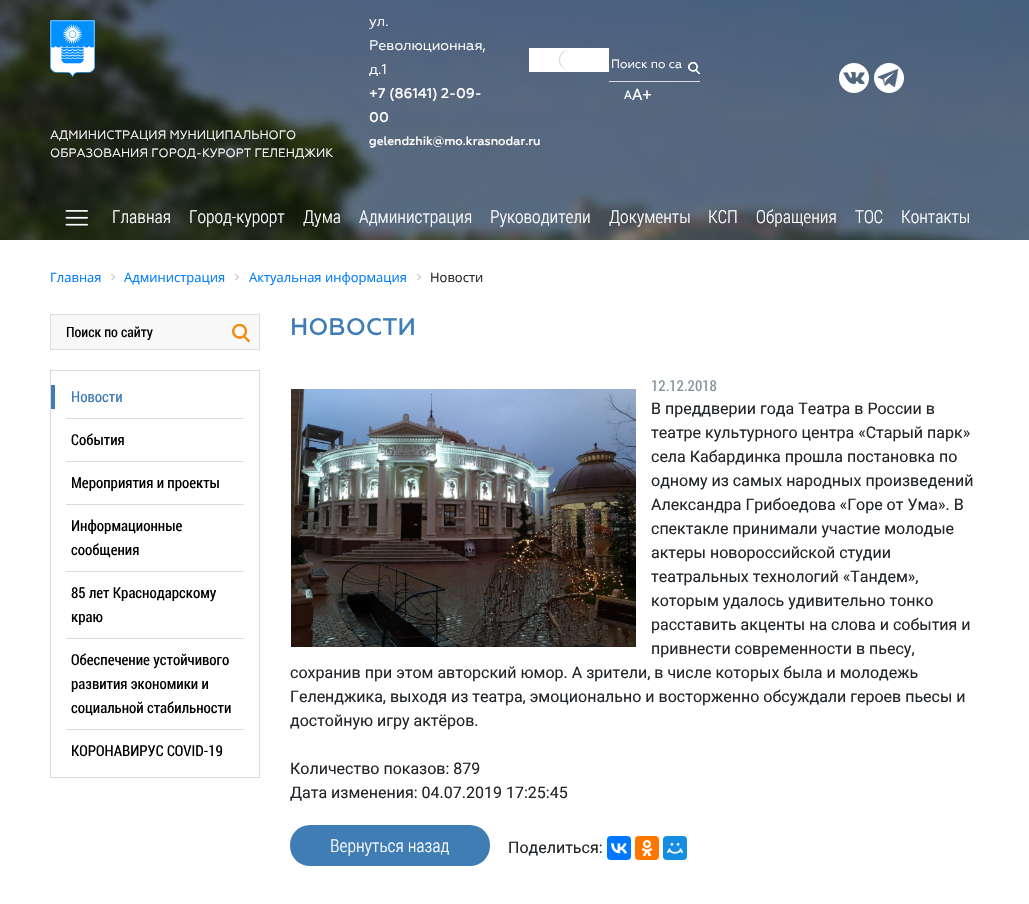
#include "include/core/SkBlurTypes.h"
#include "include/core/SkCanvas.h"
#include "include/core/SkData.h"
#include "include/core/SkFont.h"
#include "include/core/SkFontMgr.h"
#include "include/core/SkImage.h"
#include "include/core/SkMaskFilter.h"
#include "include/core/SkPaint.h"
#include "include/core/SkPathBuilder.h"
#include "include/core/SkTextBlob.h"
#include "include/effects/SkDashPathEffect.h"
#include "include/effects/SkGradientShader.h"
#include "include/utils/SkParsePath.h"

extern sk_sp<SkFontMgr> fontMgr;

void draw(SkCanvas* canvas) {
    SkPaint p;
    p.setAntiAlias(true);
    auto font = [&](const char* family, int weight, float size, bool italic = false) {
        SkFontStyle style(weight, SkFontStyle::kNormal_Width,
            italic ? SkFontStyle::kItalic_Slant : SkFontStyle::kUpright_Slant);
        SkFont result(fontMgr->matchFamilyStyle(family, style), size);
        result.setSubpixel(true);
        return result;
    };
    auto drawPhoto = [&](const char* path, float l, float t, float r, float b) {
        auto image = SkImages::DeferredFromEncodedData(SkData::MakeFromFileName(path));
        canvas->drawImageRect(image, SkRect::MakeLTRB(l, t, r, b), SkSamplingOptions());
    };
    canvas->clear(0xFFFFFFFF);
    drawPhoto("media/1.png", 0, 0, 1029, 240);
    auto font1 = font("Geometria", 400, 14);
    p.setColor(0xFFFFFFFF);
    {
        const struct { const char* s; float x, y; } items[] = {
            {"ул.", 369, 26},
            {"Революционная,", 369, 50},
            {"д.1", 369, 74},
        };
        for (auto [s, x, y] : items) {
            canvas->drawString(s, x, y, font1, p);
        }
    }
    auto font2 = font("Geometria", 500, 14);
    canvas->drawString("+7 (86141) 2-09-", 369, 98, font2, p);
    canvas->drawString("00", 369, 122, font2, p);
    auto font3 = font("Geometria", 500, 12);
    canvas->drawString("gelendzhik@mo.krasnodar.ru", 369, 145, font3, p);
    canvas->drawRect(SkRect::MakeLTRB(529, 48, 609, 72), p);
    drawPhoto("media/2.png", 558, 50, 570, 70);
    p.setColor(0xFFDCDCDC);
    canvas->drawRect(SkRect::MakeLTRB(609, 81, 700, 82), p);
    auto font4 = font("Geometria", 400, 12);
    p.setColor(0xFFFFFFFF);
    canvas->drawString("Поиск по са", 611, 68, font4, p);
    drawPhoto("media/3.png", 688, 62, 700, 74);
    drawPhoto("media/4.png", 688, 62, 700, 74);
    auto font5 = font("Roboto", 400, 16);
    canvas->drawString("A+", 632, 100, font5, p);
    auto font6 = font("Roboto", 400, 12);
    canvas->drawString("А", 624, 99, font6, p);
    drawPhoto("media/5.png", 839, 63, 869, 93);
    drawPhoto("media/6.png", 874, 63, 904, 93);
    drawPhoto("media/7.png", 50, 20, 95, 77);
    canvas->drawString("АДМИНИСТРАЦИЯ МУНИЦИПАЛЬНОГО", 50, 139, font4, p);
    canvas->drawString("ОБРАЗОВАНИЯ ГОРОД-КУРОРТ ГЕЛЕНДЖИК", 50, 157, font4, p);
    drawPhoto("media/8.png", 65, 210, 88, 226);
    auto font7 = font("Roboto Condensed", 300, 18);
    {
        const struct { const char* s; float x, y; } items[] = {
            {"Главная", 112, 223},
            {"Город-курорт", 189, 223},
            {"Дума", 303, 223},
            {"Администрация", 359, 223},
            {"Руководители", 490, 223},
            {"Документы", 609, 223},
            {"КСП", 708, 223},
            {"Обращения", 756, 223},
            {"ТОС", 855, 223},
            {"Контакты", 901, 223},
        };
        for (auto [s, x, y] : items) {
            canvas->drawString(s, x, y, font7, p);
        }
    }
    auto font8 = font("Open Sans", 400, 13);
    p.setColor(0xFF007BFF);
    canvas->drawString("Главная", 50, 282, font8, p);
    drawPhoto("media/9.png", 111, 273, 115, 281);
    canvas->drawString("Администрация", 124, 282, font8, p);
    drawPhoto("media/9.png", 235, 273, 239, 281);
    canvas->drawString("Актуальная информация", 249, 282, font8, p);
    drawPhoto("media/9.png", 417, 273, 421, 281);
    p.setColor(0xFF212529);
    canvas->drawString("Новости", 430, 282, font8, p);
    p.setColor(0xFFF8F8F8);
    canvas->drawRect(SkRect::MakeLTRB(50.5f, 314.5f, 259.5f, 349.5f), p);
    p.setStyle(SkPaint::kStroke_Style);
    p.setStrokeWidth(1);
    p.setColor(0xFFDCDCDC);
    canvas->drawRect(SkRect::MakeLTRB(50.5f, 314.5f, 259.5f, 349.5f), p);
    auto font9 = font("Roboto Condensed", 400, 14);
    p.setStyle(SkPaint::kFill_Style);
    p.setColor(0xFF000000);
    canvas->drawString("Поиск по сайту", 66, 337, font9, p);
    drawPhoto("media/10.png", 232, 324, 250, 342);
    drawPhoto("media/11.png", 232, 324, 250, 342);
    p.setStyle(SkPaint::kStroke_Style);
    p.setColor(0xFFDCDCDC);
    canvas->drawRect(SkRect::MakeLTRB(50.5f, 370.5f, 259.5f, 777.5f), p);
    p.setStyle(SkPaint::kFill_Style);
    p.setColor(0xFF417DB5);
    canvas->drawRect(SkRect::MakeLTRB(51, 385, 55, 409), p);
    auto font10 = font("Roboto Condensed", 400, 15);
    canvas->drawString("Новости", 71, 402, font10, p);
    p.setColor(0xFFDCDCDC);
    canvas->drawRect(SkRect::MakeLTRB(66, 418, 244, 419), p);
    p.setColor(0xFF000000);
    canvas->drawString("Cобытия", 71, 445, font10, p);
    p.setColor(0xFFDCDCDC);
    canvas->drawRect(SkRect::MakeLTRB(66, 461, 244, 462), p);
    p.setColor(0xFF000000);
    canvas->drawString("Мероприятия и проекты", 71, 488, font10, p);
    p.setColor(0xFFDCDCDC);
    canvas->drawRect(SkRect::MakeLTRB(66, 504, 244, 505), p);
    p.setColor(0xFF000000);
    canvas->drawString("Информационные", 71, 531, font10, p);
    canvas->drawString("сообщения", 71, 555, font10, p);
    p.setColor(0xFFDCDCDC);
    canvas->drawRect(SkRect::MakeLTRB(66, 571, 244, 572), p);
    p.setColor(0xFF000000);
    canvas->drawString("85 лет Краснодарскому", 71, 598, font10, p);
    canvas->drawString("краю", 71, 622, font10, p);
    p.setColor(0xFFDCDCDC);
    canvas->drawRect(SkRect::MakeLTRB(66, 638, 244, 639), p);
    p.setColor(0xFF000000);
    {
        const struct { const char* s; float x, y; } items[] = {
            {"Обеспечение устойчивого", 71, 665},
            {"развития экономики и", 71, 689},
            {"социальной стабильности", 71, 713},
        };
        for (auto [s, x, y] : items) {
            canvas->drawString(s, x, y, font10, p);
        }
    }
    p.setColor(0xFFDCDCDC);
    canvas->drawRect(SkRect::MakeLTRB(66, 729, 244, 730), p);
    p.setColor(0xFF000000);
    canvas->drawString("КОРОНАВИРУС COVID-19", 71, 756, font10, p);
    auto font11 = font("Geometria", 500, 24);
    p.setColor(0xFF417DB5);
    canvas->drawString("НОВОСТИ", 290, 335, font11, p);
    p.setColor(0xFF82929A);
    canvas->drawString("12.12.2018", 651, 391, font10, p);
    drawPhoto("media/12.png", 291, 389, 636, 647);
    p.setColor(0xFF212529);
    {
        const struct { const char* s; float x, y; } items[] = {
            {"В преддверии года Театра в России в", 651, 414},
            {"театре культурного центра «Старый парк»", 651, 438},
            {"села Кабардинка прошла постановка по", 651, 462},
            {"одному из самых народных произведений", 651, 486},
            {"Александра Грибоедова «Горе от Ума». В", 651, 510},
            {"спектакле принимали участие молодые", 651, 534},
            {"актеры новороссийской студии", 651, 558},
            {"театральных технологий «Тандем»,", 651, 582},
            {"которым удалось удивительно тонко", 651, 606},
            {"расставить акценты на слова и события и", 651, 630},
            {"привнести современности в пьесу,", 651, 654},
            {"сохранив при этом авторский юмор. А зрители, в числе которых была и молодежь", 290, 678},
            {"Геленджика, выходя из театра, эмоционально и восторженно обсуждали героев пьесы и", 290, 702},
            {"достойную игру актёров.", 290, 726},
            {"Количество показов: 879", 290, 774},
            {"Дата изменения: 04.07.2019 17:25:45", 290, 798},
        };
        for (auto [s, x, y] : items) {
            canvas->drawString(s, x, y, font5, p);
        }
    }
    p.setColor(0xFF417DB5);
    canvas->drawRoundRect(SkRect::MakeLTRB(290, 825, 490, 866), 20, 20, p);
    p.setColor(0xFFFFFFFF);
    canvas->drawString("Вернуться назад", 330, 852, font7, p);
    p.setColor(0xFF212529);
    canvas->drawString("Поделиться:", 508, 853, font5, p);
    p.setColor(0xFF0077FF);
    canvas->drawRoundRect(SkRect::MakeLTRB(607, 836, 631, 860), 4, 4, p);
    drawPhoto("media/13.png", 611, 843, 627, 854);
    p.setColor(0xFFFF7700);
    canvas->drawRoundRect(SkRect::MakeLTRB(635, 836, 659, 860), 4, 4, p);
    drawPhoto("media/14.png", 641, 840, 653, 856);
    p.setColor(0xFF168DE2);
    canvas->drawRoundRect(SkRect::MakeLTRB(663, 836, 687, 860), 4, 4, p);
    drawPhoto("media/15.png", 667, 843, 683, 854);
}
